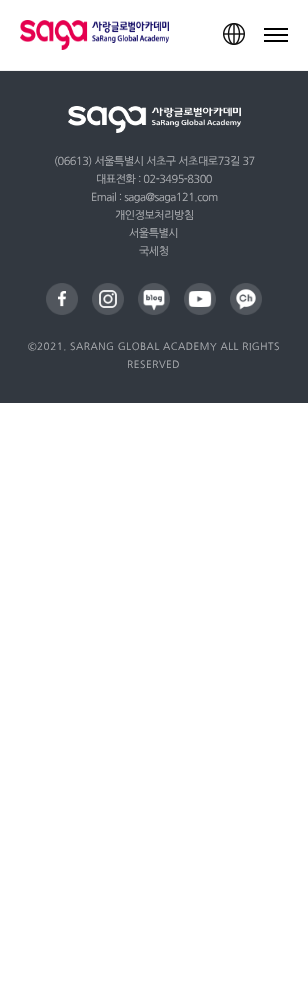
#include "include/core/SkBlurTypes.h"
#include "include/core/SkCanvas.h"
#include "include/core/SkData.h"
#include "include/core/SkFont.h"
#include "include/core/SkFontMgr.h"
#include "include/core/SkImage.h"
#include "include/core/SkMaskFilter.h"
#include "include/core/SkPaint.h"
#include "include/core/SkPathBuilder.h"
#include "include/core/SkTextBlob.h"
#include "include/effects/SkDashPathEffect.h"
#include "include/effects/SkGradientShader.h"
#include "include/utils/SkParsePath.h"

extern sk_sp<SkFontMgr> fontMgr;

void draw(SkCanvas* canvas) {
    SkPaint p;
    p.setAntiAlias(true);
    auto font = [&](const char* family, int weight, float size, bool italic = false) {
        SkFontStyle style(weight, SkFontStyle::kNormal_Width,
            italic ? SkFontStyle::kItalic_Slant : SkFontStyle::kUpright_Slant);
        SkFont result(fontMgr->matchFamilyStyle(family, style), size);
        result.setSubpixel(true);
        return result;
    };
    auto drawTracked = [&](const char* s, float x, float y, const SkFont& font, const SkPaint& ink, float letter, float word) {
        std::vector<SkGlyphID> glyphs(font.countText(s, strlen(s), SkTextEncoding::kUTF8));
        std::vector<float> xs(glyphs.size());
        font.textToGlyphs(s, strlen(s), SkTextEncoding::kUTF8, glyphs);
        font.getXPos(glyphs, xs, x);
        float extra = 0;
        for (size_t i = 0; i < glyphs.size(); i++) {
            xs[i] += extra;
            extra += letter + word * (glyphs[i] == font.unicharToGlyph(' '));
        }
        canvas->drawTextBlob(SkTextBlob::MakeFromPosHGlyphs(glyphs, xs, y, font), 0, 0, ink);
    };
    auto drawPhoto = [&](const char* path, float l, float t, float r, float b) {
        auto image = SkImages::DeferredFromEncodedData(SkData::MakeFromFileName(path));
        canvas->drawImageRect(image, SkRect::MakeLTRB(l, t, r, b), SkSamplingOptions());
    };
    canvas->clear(0xFFFFFFFF);
    p.setColor(0xFFF1F1F1);
    canvas->drawRect(SkRect::MakeLTRB(0, 70, 308, 71), p);
    drawPhoto("media/1.png", 20, 20, 169, 50);
    drawPhoto("media/2.png", 223, 23, 245, 45);
    {
        const struct { float l, t, r, b; SkColor color; } items[] = {
            {264, 28, 288, 30, 0xFF000000},
            {264, 34, 288, 36, 0xFF000000},
            {264, 40, 288, 42, 0xFF000000},
            {0, 71, 308, 403, 0xFF323840},
        };
        for (auto [l, t, r, b, color] : items) {
            p.setColor(color);
            canvas->drawRect(SkRect::MakeLTRB(l, t, r, b), p);
        }
    }
    drawPhoto("media/3.png", 68, 106, 241, 133);
    auto font1 = font("NanumGothic", 400, 11);
    p.setColor(0xFFADAFB3);
    {
        const struct { const char* s; float x, y; } items[] = {
            {"(06613) 서울특별시 서초구 서초대로73길 37", 54, 165},
            {"대표전화 : 02-3495-8300", 96, 183},
            {"Email : saga@saga121.com", 91, 201},
            {"개인정보처리방침", 115, 219},
            {"서울특별시", 129, 237},
            {"국세청", 139, 255},
        };
        for (auto [s, x, y] : items) {
            drawTracked(s, x, y, font1, p, -0.5f, 0);
        }
    }
    drawPhoto("media/4.png", 46, 283, 78, 315);
    drawPhoto("media/5.png", 92, 283, 124, 315);
    drawPhoto("media/6.png", 138, 283, 170, 315);
    drawPhoto("media/7.png", 184, 283, 216, 315);
    drawPhoto("media/8.png", 230, 283, 262, 315);
    auto font2 = font("NanumGothic", 400, 10);
    drawTracked("©2021. SARANG GLOBAL ACADEMY ALL RIGHTS", 28, 350, font2, p, 0.5f, 0);
    drawTracked("RESERVED", 127, 368, font2, p, 0.5f, 0);
}
